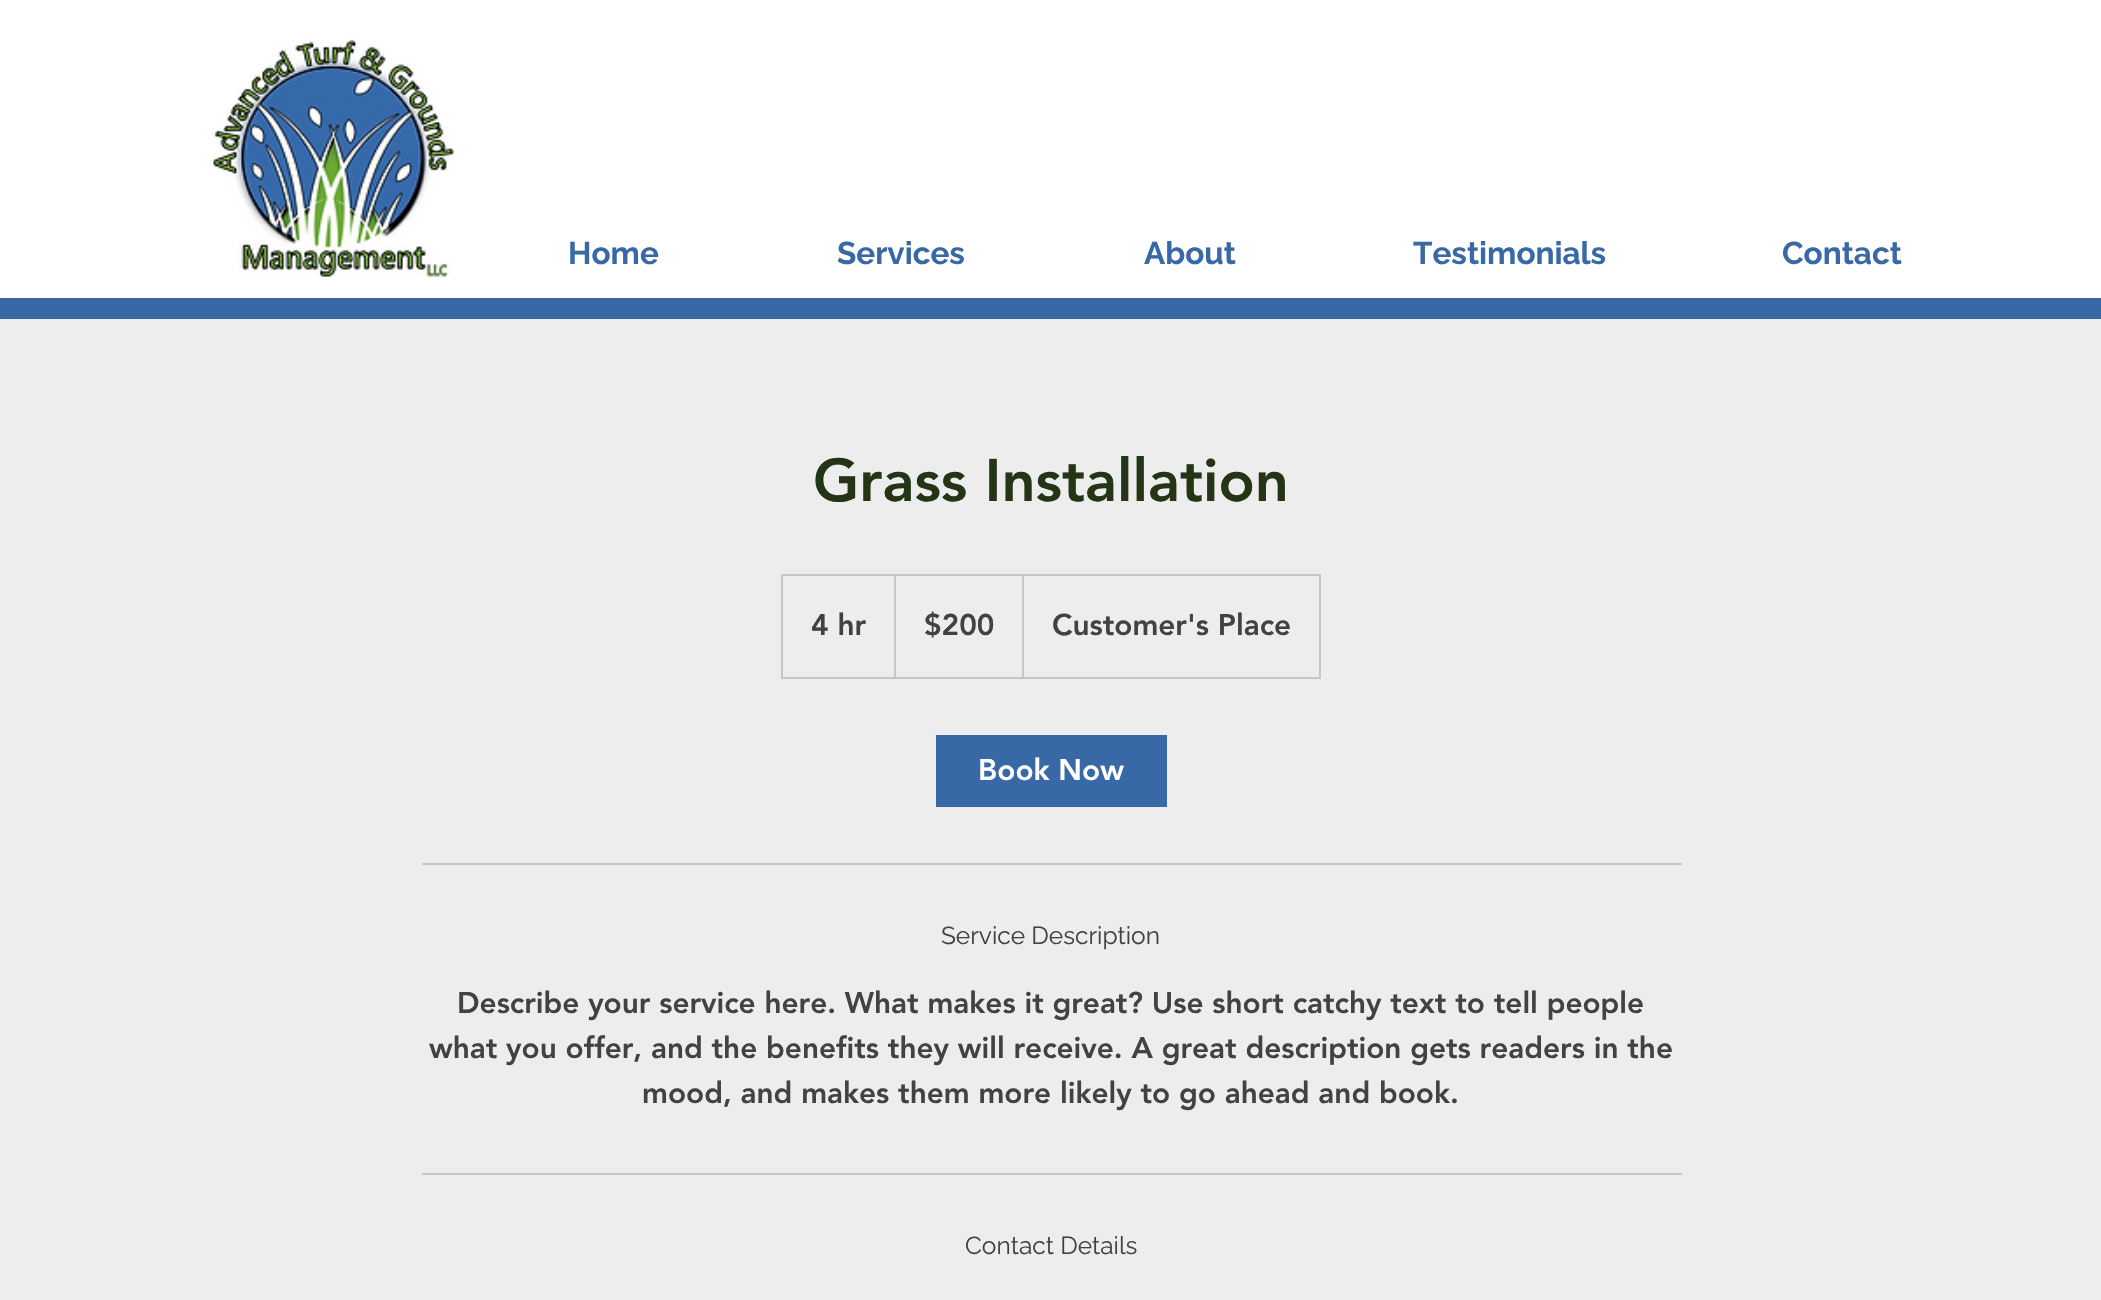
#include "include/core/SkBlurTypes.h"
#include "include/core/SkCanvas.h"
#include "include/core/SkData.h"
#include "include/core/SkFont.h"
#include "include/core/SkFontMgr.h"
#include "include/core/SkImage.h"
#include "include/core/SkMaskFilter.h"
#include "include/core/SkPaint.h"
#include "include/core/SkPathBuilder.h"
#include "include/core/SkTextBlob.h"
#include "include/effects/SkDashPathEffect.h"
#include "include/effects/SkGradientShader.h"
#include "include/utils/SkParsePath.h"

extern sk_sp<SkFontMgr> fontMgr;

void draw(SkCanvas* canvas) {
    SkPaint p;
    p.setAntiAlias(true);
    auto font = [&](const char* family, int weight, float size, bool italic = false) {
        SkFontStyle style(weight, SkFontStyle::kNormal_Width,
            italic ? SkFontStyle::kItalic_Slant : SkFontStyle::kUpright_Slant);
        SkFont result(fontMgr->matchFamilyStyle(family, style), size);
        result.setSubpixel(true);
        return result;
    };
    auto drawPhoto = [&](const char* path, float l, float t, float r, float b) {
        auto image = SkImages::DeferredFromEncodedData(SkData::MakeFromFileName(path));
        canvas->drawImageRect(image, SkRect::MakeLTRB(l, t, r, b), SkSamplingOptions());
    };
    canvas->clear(0xFFEDEDED);
    p.setColor(0xFFFFFFFF);
    canvas->drawRect(SkRect::MakeLTRB(0, 0, 2101, 298), p);
    drawPhoto("media/1.png", 212, 39, 454, 277);
    auto font1 = font("Raleway", 700, 31.5f);
    p.setColor(0xFF3968A6);
    {
        const struct { const char* s; float x, y; } items[] = {
            {"Home", 568, 264},
            {"Services", 837, 264},
            {"About", 1144, 264},
            {"Testimonials", 1413, 264},
            {"Contact", 1782, 264},
        };
        for (auto [s, x, y] : items) {
            canvas->drawString(s, x, y, font1, p);
        }
    }
    canvas->drawRect(SkRect::MakeLTRB(0, 298, 2101, 319), p);
    auto font2 = font("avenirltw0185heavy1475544", 900, 59.5f);
    p.setColor(0xFF233514);
    canvas->drawString("Grass Installation", 813, 501, font2, p);
    p.setStyle(SkPaint::kStroke_Style);
    p.setStrokeWidth(2);
    p.setColor(0xFFC6C6C6);
    canvas->drawRect(SkRect::MakeLTRB(782, 575, 1320, 678), p);
    auto font3 = font("avenirltw0185heavy1475544", 900, 29.75f);
    p.setStyle(SkPaint::kFill_Style);
    p.setColor(0xFF424242);
    canvas->drawString("4 hr", 811, 635, font3, p);
    canvas->save();
    canvas->clipRect(SkRect::MakeLTRB(782, 576, 1320, 677));
    p.setColor(0xFFC6C6C6);
    canvas->drawPath(SkPathBuilder().moveTo(894, 677).lineTo(894, 574).lineTo(896, 576).lineTo(896, 677).close().detach(), p);
    canvas->restore();
    p.setColor(0xFF424242);
    canvas->drawString("$200", 924, 635, font3, p);
    canvas->save();
    canvas->clipRect(SkRect::MakeLTRB(782, 576, 1320, 677));
    p.setColor(0xFFC6C6C6);
    canvas->drawPath(SkPathBuilder().moveTo(1022, 677).lineTo(1022, 574).lineTo(1024, 576).lineTo(1024, 677).close().detach(), p);
    canvas->restore();
    p.setColor(0xFF424242);
    canvas->drawString("Customer's Place", 1052, 635, font3, p);
    p.setColor(0xFF3968A6);
    canvas->drawRect(SkRect::MakeLTRB(936, 735, 1167, 807), p);
    p.setColor(0xFFFFFFFF);
    canvas->drawString("Book Now", 978, 780, font3, p);
    p.setColor(0xFFC6C6C6);
    canvas->drawRect(SkRect::MakeLTRB(422, 863, 1682, 865), p);
    auto font4 = font("Raleway", 400, 24.5f);
    p.setColor(0xFF424242);
    canvas->drawString("Service Description", 941, 944, font4, p);
    {
        const struct { const char* s; float x, y; } items[] = {
            {"Describe your service here. What makes it great? Use short catchy text to tell people", 457, 1013},
            {"what you offer, and the benefits they will receive. A great description gets readers in the", 429, 1058},
            {"mood, and makes them more likely to go ahead and book.", 642, 1103},
        };
        for (auto [s, x, y] : items) {
            canvas->drawString(s, x, y, font3, p);
        }
    }
    p.setColor(0xFFC6C6C6);
    canvas->drawRect(SkRect::MakeLTRB(422, 1173, 1682, 1175), p);
    p.setColor(0xFF424242);
    canvas->drawString("Contact Details", 965, 1254, font4, p);
}
